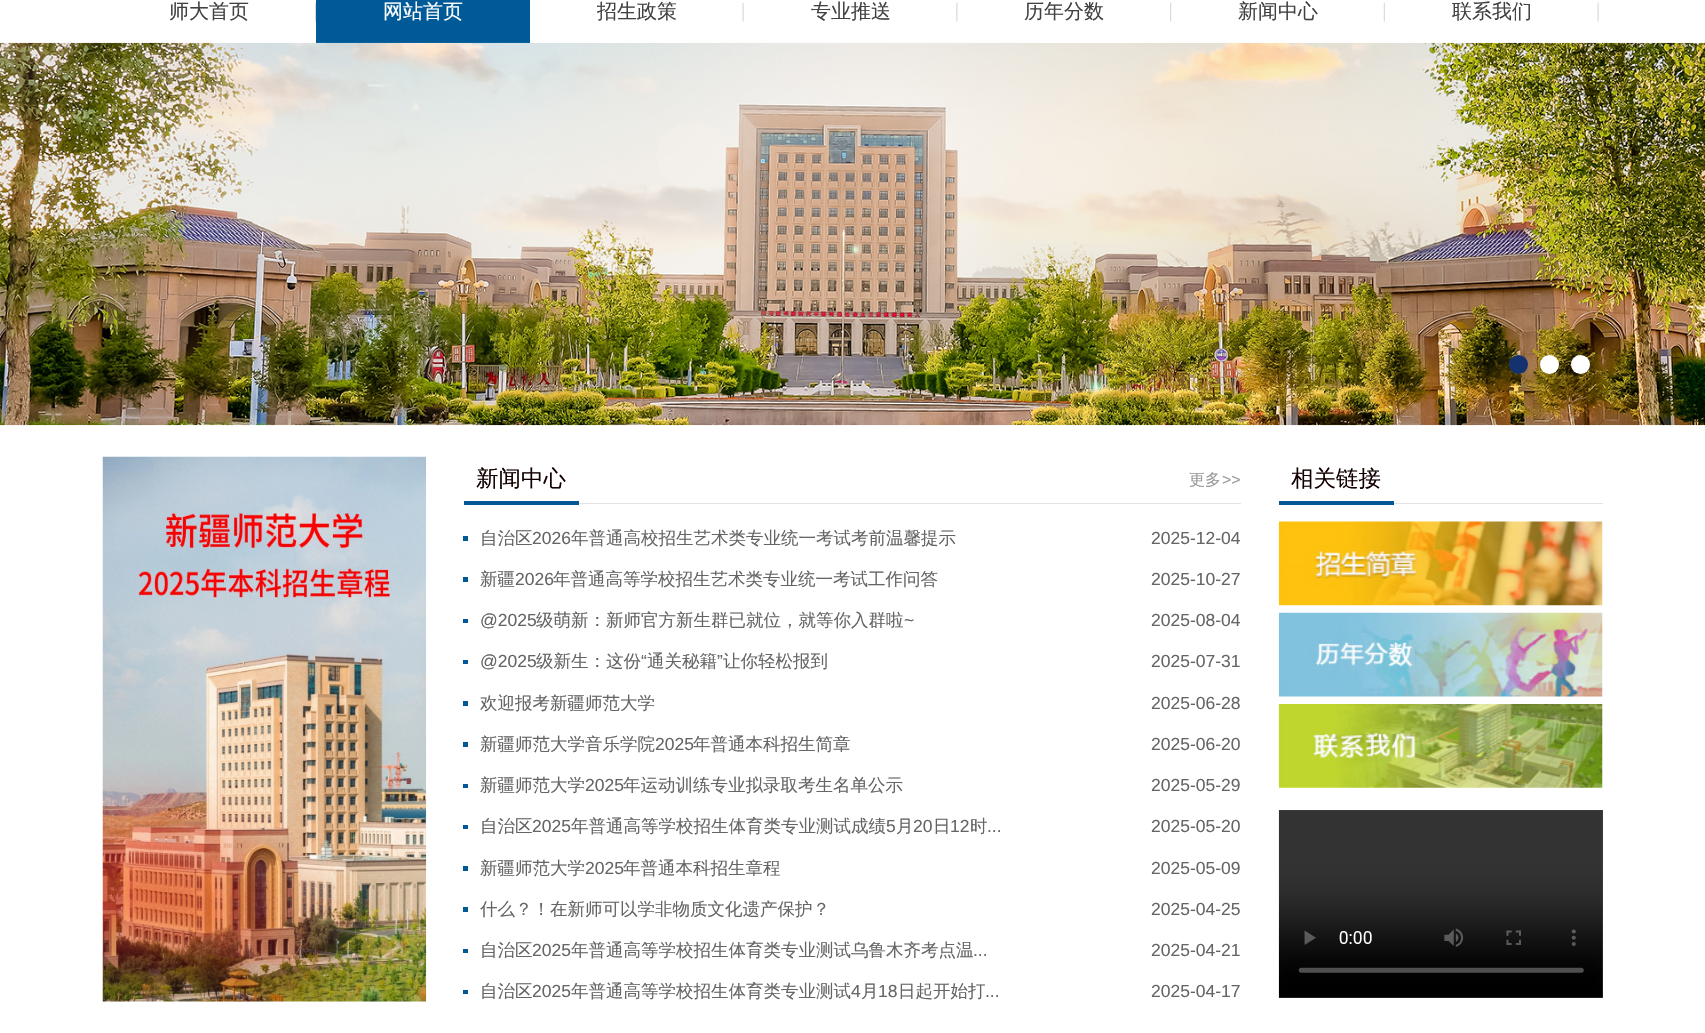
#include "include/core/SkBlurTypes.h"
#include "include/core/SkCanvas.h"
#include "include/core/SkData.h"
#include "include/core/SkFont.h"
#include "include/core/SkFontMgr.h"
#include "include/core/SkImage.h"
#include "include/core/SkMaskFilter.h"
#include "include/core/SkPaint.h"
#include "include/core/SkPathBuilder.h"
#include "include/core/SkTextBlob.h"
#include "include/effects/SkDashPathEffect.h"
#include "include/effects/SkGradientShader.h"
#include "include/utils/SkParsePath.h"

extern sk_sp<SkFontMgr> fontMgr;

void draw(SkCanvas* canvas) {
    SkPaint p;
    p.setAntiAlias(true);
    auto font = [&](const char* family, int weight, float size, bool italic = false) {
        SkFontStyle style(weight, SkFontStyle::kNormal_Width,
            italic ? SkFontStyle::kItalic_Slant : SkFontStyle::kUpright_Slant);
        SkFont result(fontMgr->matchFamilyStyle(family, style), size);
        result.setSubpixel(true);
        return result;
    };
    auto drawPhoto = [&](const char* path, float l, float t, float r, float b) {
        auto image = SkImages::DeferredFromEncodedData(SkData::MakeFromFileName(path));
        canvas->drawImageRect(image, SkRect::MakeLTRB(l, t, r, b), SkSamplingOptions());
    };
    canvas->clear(0xFFFFFFFF);
    drawPhoto("media/1.png", 315, 2, 316, 22);
    auto font1 = font("WenQuanYi Zen Hei", 500, 20);
    p.setColor(0xFF414141);
    canvas->drawString("师大首页", 169, 18, font1, p);
    p.setColor(0xFF005A97);
    canvas->drawRect(SkRect::MakeLTRB(316, 0, 530, 43), p);
    p.setColor(0xFFFFFFFF);
    canvas->drawString("网站首页", 383, 18, font1, p);
    drawPhoto("media/2.png", 742, 2, 744, 22);
    p.setColor(0xFF414141);
    canvas->drawString("招生政策", 597, 18, font1, p);
    drawPhoto("media/3.png", 956, 2, 958, 22);
    canvas->drawString("专业推送", 811, 18, font1, p);
    drawPhoto("media/4.png", 1170, 2, 1172, 22);
    canvas->drawString("历年分数", 1024, 18, font1, p);
    drawPhoto("media/5.png", 1383, 2, 1385, 22);
    canvas->drawString("新闻中心", 1238, 18, font1, p);
    drawPhoto("media/2.png", 1597, 2, 1599, 22);
    canvas->drawString("联系我们", 1452, 18, font1, p);
    drawPhoto("media/6.png", 0, 42, 1705, 426);
    p.setColor(0xFF143270);
    canvas->drawCircle(1518.5f, 364.5f, 9.5f, p);
    p.setColor(0xFFFFFFFF);
    canvas->drawCircle(1549.5f, 364.5f, 9.5f, p);
    canvas->drawCircle(1580.5f, 364.5f, 9.5f, p);
    drawPhoto("media/7.png", 102, 456, 427, 1002);
    p.setColor(0xFFE3E3E3);
    canvas->drawRect(SkRect::MakeLTRB(579, 503, 1241, 504), p);
    p.setColor(0xFF005996);
    canvas->drawRect(SkRect::MakeLTRB(464, 501, 579, 505), p);
    auto font2 = font("WenQuanYi Zen Hei", 500, 22.5f);
    p.setColor(0xFF120000);
    canvas->drawString("新闻中心", 476, 486, font2, p);
    auto font3 = font("WenQuanYi Zen Hei", 500, 16);
    p.setColor(0xFF999999);
    canvas->drawString("更多", 1189, 485, font3, p);
    auto font4 = font("Liberation Sans", 400, 16);
    canvas->drawString(">>", 1222, 485, font4, p);
    p.setColor(0xFF005996);
    canvas->drawRect(SkRect::MakeLTRB(463, 536, 468, 541), p);
    auto font5 = font("WenQuanYi Zen Hei", 500, 17.5f);
    p.setColor(0xFF656565);
    canvas->drawString("自治区", 480, 544, font5, p);
    auto font6 = font("Liberation Sans", 400, 17.5f);
    canvas->drawString("2026", 532, 544, font6, p);
    canvas->drawString("年普通高校招生艺术类专业统一考试考前温馨提示", 571, 544, font5, p);
    canvas->drawString("2025-12-04", 1151, 544, font6, p);
    p.setColor(0xFF005996);
    canvas->drawRect(SkRect::MakeLTRB(463, 577, 468, 582), p);
    p.setColor(0xFF656565);
    canvas->drawString("新疆", 480, 585, font5, p);
    canvas->drawString("2026", 515, 585, font6, p);
    canvas->drawString("年普通高等学校招生艺术类专业统一考试工作问答", 553, 585, font5, p);
    canvas->drawString("2025-10-27", 1151, 585, font6, p);
    p.setColor(0xFF005996);
    canvas->drawRect(SkRect::MakeLTRB(463, 619, 468, 623), p);
    p.setColor(0xFF656565);
    canvas->drawString("@2025", 480, 626, font6, p);
    canvas->drawString("级萌新：新师官方新生群已就位，就等你入群啦", 536, 626, font5, p);
    canvas->drawString("~", 904, 626, font6, p);
    canvas->drawString("2025-08-04", 1151, 626, font6, p);
    p.setColor(0xFF005996);
    canvas->drawRect(SkRect::MakeLTRB(463, 660, 468, 664), p);
    p.setColor(0xFF656565);
    canvas->drawString("@2025", 480, 667, font6, p);
    canvas->drawString("级新生：这份", 536, 667, font5, p);
    canvas->drawString("“", 641, 667, font6, p);
    canvas->drawString("通关秘籍", 647, 667, font5, p);
    canvas->drawString("”", 717, 667, font6, p);
    canvas->drawString("让你轻松报到", 723, 667, font5, p);
    canvas->drawString("2025-07-31", 1151, 667, font6, p);
    p.setColor(0xFF005996);
    canvas->drawRect(SkRect::MakeLTRB(463, 701, 468, 706), p);
    p.setColor(0xFF656565);
    canvas->drawString("欢迎报考新疆师范大学", 480, 709, font5, p);
    canvas->drawString("2025-06-28", 1151, 709, font6, p);
    p.setColor(0xFF005996);
    canvas->drawRect(SkRect::MakeLTRB(463, 742, 468, 747), p);
    p.setColor(0xFF656565);
    canvas->drawString("新疆师范大学音乐学院", 480, 750, font5, p);
    canvas->drawString("2025", 655, 750, font6, p);
    canvas->drawString("年普通本科招生简章", 693, 750, font5, p);
    canvas->drawString("2025-06-20", 1151, 750, font6, p);
    p.setColor(0xFF005996);
    canvas->drawRect(SkRect::MakeLTRB(463, 784, 468, 788), p);
    p.setColor(0xFF656565);
    canvas->drawString("新疆师范大学", 480, 791, font5, p);
    canvas->drawString("2025", 585, 791, font6, p);
    canvas->drawString("年运动训练专业拟录取考生名单公示", 623, 791, font5, p);
    canvas->drawString("2025-05-29", 1151, 791, font6, p);
    p.setColor(0xFF005996);
    canvas->drawRect(SkRect::MakeLTRB(463, 825, 468, 829), p);
    p.setColor(0xFF656565);
    canvas->drawString("自治区", 480, 832, font5, p);
    canvas->drawString("2025", 532, 832, font6, p);
    canvas->drawString("年普通高等学校招生体育类专业测试成绩", 571, 832, font5, p);
    canvas->drawString("5", 886, 832, font6, p);
    canvas->drawString("月", 896, 832, font5, p);
    canvas->drawString("20", 913, 832, font6, p);
    canvas->drawString("日", 933, 832, font5, p);
    canvas->drawString("12", 950, 832, font6, p);
    canvas->drawString("时", 970, 832, font5, p);
    canvas->drawString("...", 987, 832, font6, p);
    canvas->drawString("2025-05-20", 1151, 832, font6, p);
    p.setColor(0xFF005996);
    canvas->drawRect(SkRect::MakeLTRB(463, 866, 468, 871), p);
    p.setColor(0xFF656565);
    canvas->drawString("新疆师范大学", 480, 874, font5, p);
    canvas->drawString("2025", 585, 874, font6, p);
    canvas->drawString("年普通本科招生章程", 623, 874, font5, p);
    canvas->drawString("2025-05-09", 1151, 874, font6, p);
    p.setColor(0xFF005996);
    canvas->drawRect(SkRect::MakeLTRB(463, 907, 468, 912), p);
    p.setColor(0xFF656565);
    canvas->drawString("什么？！在新师可以学非物质文化遗产保护？", 480, 915, font5, p);
    canvas->drawString("2025-04-25", 1151, 915, font6, p);
    p.setColor(0xFF005996);
    canvas->drawRect(SkRect::MakeLTRB(463, 949, 468, 953), p);
    p.setColor(0xFF656565);
    canvas->drawString("自治区", 480, 956, font5, p);
    canvas->drawString("2025", 532, 956, font6, p);
    canvas->drawString("年普通高等学校招生体育类专业测试乌鲁木齐考点温", 571, 956, font5, p);
    canvas->drawString("...", 973, 956, font6, p);
    canvas->drawString("2025-04-21", 1151, 956, font6, p);
    p.setColor(0xFF005996);
    canvas->drawRect(SkRect::MakeLTRB(463, 990, 468, 994), p);
    p.setColor(0xFF656565);
    canvas->drawString("自治区", 480, 997, font5, p);
    canvas->drawString("2025", 532, 997, font6, p);
    canvas->drawString("年普通高等学校招生体育类专业测试", 571, 997, font5, p);
    canvas->drawString("4", 851, 997, font6, p);
    canvas->drawString("月", 861, 997, font5, p);
    canvas->drawString("18", 878, 997, font6, p);
    canvas->drawString("日起开始打", 898, 997, font5, p);
    canvas->drawString("...", 985, 997, font6, p);
    canvas->drawString("2025-04-17", 1151, 997, font6, p);
    p.setColor(0xFFE3E3E3);
    canvas->drawRect(SkRect::MakeLTRB(1394, 503, 1603, 504), p);
    p.setColor(0xFF005996);
    canvas->drawRect(SkRect::MakeLTRB(1279, 501, 1394, 505), p);
    p.setColor(0xFF120000);
    canvas->drawString("相关链接", 1291, 486, font2, p);
    drawPhoto("media/8.png", 1278, 521, 1603, 606);
    drawPhoto("media/9.png", 1278, 612, 1603, 697);
    drawPhoto("media/10.png", 1278, 704, 1603, 788);
    p.setColor(0xFF474747);
    canvas->drawRect(SkRect::MakeLTRB(1279, 810, 1603, 998), p);
    drawPhoto("media/11.png", 1278, 810, 1603, 998);
}
